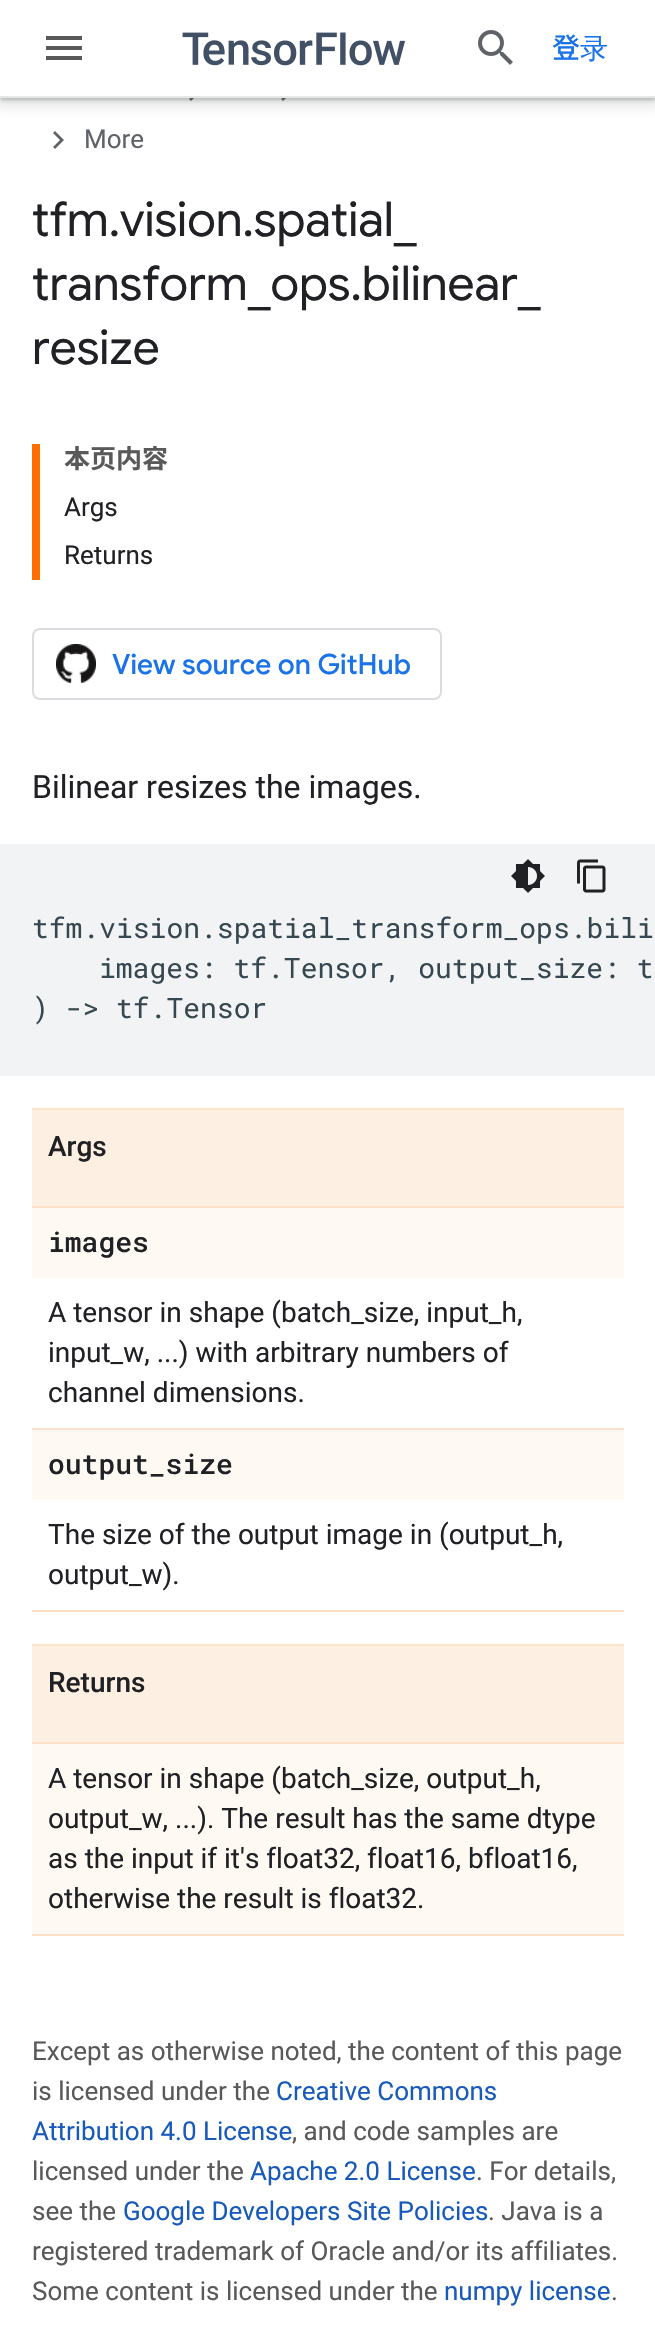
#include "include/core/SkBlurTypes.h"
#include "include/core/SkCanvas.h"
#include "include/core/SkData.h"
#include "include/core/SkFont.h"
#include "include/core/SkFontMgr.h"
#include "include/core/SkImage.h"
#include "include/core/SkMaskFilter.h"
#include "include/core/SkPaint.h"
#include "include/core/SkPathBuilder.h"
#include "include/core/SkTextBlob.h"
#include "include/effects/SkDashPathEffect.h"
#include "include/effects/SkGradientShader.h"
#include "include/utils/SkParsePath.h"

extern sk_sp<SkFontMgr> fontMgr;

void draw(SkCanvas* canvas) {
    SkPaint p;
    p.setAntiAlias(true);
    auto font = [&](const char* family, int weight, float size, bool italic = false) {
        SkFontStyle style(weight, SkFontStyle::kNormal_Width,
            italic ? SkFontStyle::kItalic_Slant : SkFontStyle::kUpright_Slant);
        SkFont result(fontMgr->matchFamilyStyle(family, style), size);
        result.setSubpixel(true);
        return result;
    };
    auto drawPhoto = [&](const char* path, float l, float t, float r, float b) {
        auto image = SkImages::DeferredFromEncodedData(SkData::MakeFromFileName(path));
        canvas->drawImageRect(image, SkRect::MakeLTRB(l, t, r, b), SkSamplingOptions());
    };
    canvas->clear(0xFFFFFFFF);
    p.setColor(0xFF5F6368);
    canvas->drawPath(SkPathBuilder().moveTo(191, 83).lineTo(200, 92).lineTo(191, 101).lineTo(189, 99).lineTo(196, 92).lineTo(189, 85).close().detach(), p);
    canvas->drawPath(SkPathBuilder().moveTo(283, 83).lineTo(292, 92).lineTo(283, 101).lineTo(281, 99).lineTo(288, 92).lineTo(281, 85).close().detach(), p);
    p.setColor(0x263C4043);
    p.setMaskFilter(SkMaskFilter::MakeBlur(kNormal_SkBlurStyle, 6));
    canvas->drawRect(SkRect::MakeLTRB(-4, -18, 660, 106), p);
    p.setMaskFilter(nullptr);
    p.setColor(0x4D3C4043);
    p.setMaskFilter(SkMaskFilter::MakeBlur(kNormal_SkBlurStyle, 2));
    canvas->drawRect(SkRect::MakeLTRB(0, -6, 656, 100), p);
    p.setMaskFilter(nullptr);
    p.setColor(0xFFFFFFFF);
    canvas->drawRect(SkRect::MakeLTRB(0, 0, 655, 96), p);
    p.setColor(0xFFE6E6E6);
    canvas->drawRect(SkRect::MakeLTRB(0, 96, 655, 98), p);
    p.setColor(0xFF595959);
    canvas->drawPath(SkPathBuilder().moveTo(46, 36).lineTo(82, 36).lineTo(82, 40).lineTo(46, 40).close().moveTo(46, 50).lineTo(46, 46).lineTo(82, 46).lineTo(82, 50).close().moveTo(46, 60).lineTo(46, 56).lineTo(82, 56).lineTo(82, 60).close().detach(), p);
    drawPhoto("media/1.png", 182, 32, 405, 66);
    drawPhoto("media/2.png", 478, 30, 513, 65);
    auto font1 = font("Noto Sans JP", 500, 28);
    p.setColor(0xFF1A73E8);
    canvas->drawString("登", 552, 58, font1, p);
    auto font2 = font("WenQuanYi Zen Hei", 500, 28);
    canvas->drawString("录", 580, 58, font2, p);
    p.setColor(0xFF5F6368);
    canvas->drawPath(SkPathBuilder().moveTo(55, 131).lineTo(64, 140).lineTo(55, 149).lineTo(53, 147).lineTo(60, 140).lineTo(53, 133).close().detach(), p);
    auto font3 = font("Roboto", 400, 26);
    canvas->drawString("More", 84, 148, font3, p);
    auto font4 = font("Google Sans", 400, 48);
    p.setColor(0xFF202124);
    {
        const struct { const char* s; float x, y; } items[] = {
            {"tfm.vision.spatial_", 32, 236},
            {"transform_ops.bilinear_", 32, 300},
            {"resize", 32, 364},
        };
        for (auto [s, x, y] : items) {
            canvas->drawString(s, x, y, font4, p);
        }
    }
    p.setColor(0xFFFF6F00);
    canvas->drawRect(SkRect::MakeLTRB(32, 444, 40, 580), p);
    auto font5 = font("Noto Sans JP", 700, 26);
    p.setColor(0xFF595959);
    canvas->drawString("本页内容", 64, 468, font5, p);
    p.setColor(0xFF202124);
    canvas->drawString("Args", 64, 516, font3, p);
    canvas->drawString("Returns", 64, 564, font3, p);
    p.setStyle(SkPaint::kStroke_Style);
    p.setStrokeWidth(2);
    p.setColor(0xFFDADCE0);
    canvas->drawRoundRect(SkRect::MakeLTRB(33, 629, 441, 699), 7, 7, p);
    drawPhoto("media/3.png", 56, 644, 96, 683);
    auto font6 = font("Google Sans", 500, 28);
    p.setStyle(SkPaint::kFill_Style);
    p.setColor(0xFF1A73E8);
    canvas->drawString("View source on GitHub", 112, 674, font6, p);
    auto font7 = font("Roboto", 400, 32);
    p.setColor(0xFF202124);
    canvas->drawString("Bilinear resizes the images.", 32, 798, font7, p);
    p.setColor(0xFFF1F3F4);
    canvas->drawRect(SkRect::MakeLTRB(0, 844, 655, 1076), p);
    drawPhoto("media/4.png", 511, 859, 545, 893);
    drawPhoto("media/5.png", 577, 859, 606, 893);
    auto font8 = font("Roboto Mono", 400, 28);
    p.setColor(0xFF37474F);
    {
        const struct { const char* s; float x, y; } items[] = {
            {"tfm.vision.spatial_transform_ops.bili", 32, 938},
            {"images: tf.Tensor, output_size: t", 99, 978},
            {") -> tf.Tensor", 32, 1018},
        };
        for (auto [s, x, y] : items) {
            canvas->drawString(s, x, y, font8, p);
        }
    }
    {
        const struct { float l, t, r, b; SkColor color; } items[] = {
            {32, 1110, 624, 1206, 0xFFFEEFE3},
            {32, 1108, 624, 1110, 0xFFFEDFC8},
            {32, 1206, 624, 1208, 0xFFFEDFC8},
        };
        for (auto [l, t, r, b, color] : items) {
            p.setColor(color);
            canvas->drawRect(SkRect::MakeLTRB(l, t, r, b), p);
        }
    }
    auto font9 = font("Roboto", 500, 28);
    p.setColor(0xFF202124);
    canvas->drawString("Args", 48, 1156, font9, p);
    p.setColor(0xFFFEDFC8);
    canvas->drawRect(SkRect::MakeLTRB(32, 1428, 624, 1430), p);
    p.setColor(0xFFFFF9F4);
    canvas->drawRect(SkRect::MakeLTRB(32, 1208, 624, 1278), p);
    auto font10 = font("Roboto Mono", 500, 28);
    p.setColor(0xFF202124);
    canvas->drawString("images", 48, 1252, font10, p);
    auto font11 = font("Roboto", 400, 28);
    {
        const struct { const char* s; float x, y; } items[] = {
            {"A tensor in shape (batch_size, input_h,", 48, 1322},
            {"input_w, ...) with arbitrary numbers of", 48, 1362},
            {"channel dimensions.", 48, 1402},
        };
        for (auto [s, x, y] : items) {
            canvas->drawString(s, x, y, font11, p);
        }
    }
    p.setColor(0xFFFEDFC8);
    canvas->drawRect(SkRect::MakeLTRB(32, 1610, 624, 1612), p);
    p.setColor(0xFFFFF9F4);
    canvas->drawRect(SkRect::MakeLTRB(32, 1430, 624, 1500), p);
    p.setColor(0xFF202124);
    canvas->drawString("output_size", 48, 1474, font10, p);
    canvas->drawString("The size of the output image in (output_h,", 48, 1544, font11, p);
    canvas->drawString("output_w).", 48, 1584, font11, p);
    {
        const struct { float l, t, r, b; SkColor color; } items[] = {
            {32, 1646, 624, 1742, 0xFFFEEFE3},
            {32, 1644, 624, 1646, 0xFFFEDFC8},
            {32, 1742, 624, 1744, 0xFFFEDFC8},
        };
        for (auto [l, t, r, b, color] : items) {
            p.setColor(color);
            canvas->drawRect(SkRect::MakeLTRB(l, t, r, b), p);
        }
    }
    p.setColor(0xFF202124);
    canvas->drawString("Returns", 48, 1692, font9, p);
    p.setColor(0xFFFEDFC8);
    canvas->drawRect(SkRect::MakeLTRB(32, 1934, 624, 1936), p);
    p.setColor(0xFFFFF9F4);
    canvas->drawRect(SkRect::MakeLTRB(32, 1744, 624, 1934), p);
    p.setColor(0xFF202124);
    {
        const struct { const char* s; float x, y; } items[] = {
            {"A tensor in shape (batch_size, output_h,", 48, 1788},
            {"output_w, ...). The result has the same dtype", 48, 1828},
            {"as the input if it's float32, float16, bfloat16,", 48, 1868},
            {"otherwise the result is float32.", 48, 1908},
        };
        for (auto [s, x, y] : items) {
            canvas->drawString(s, x, y, font11, p);
        }
    }
    p.setColor(0xFF595959);
    canvas->drawString("Except as otherwise noted, the content of this page", 32, 2060, font3, p);
    canvas->drawString("is licensed under the", 32, 2100, font3, p);
    p.setColor(0xFF185ABC);
    canvas->drawString("Creative Commons", 276, 2100, font3, p);
    canvas->drawString("Attribution 4.0 License", 32, 2140, font3, p);
    p.setColor(0xFF595959);
    canvas->drawString(", and code samples are", 292, 2140, font3, p);
    canvas->drawString("licensed under the", 32, 2180, font3, p);
    p.setColor(0xFF185ABC);
    canvas->drawString("Apache 2.0 License", 250, 2180, font3, p);
    p.setColor(0xFF595959);
    canvas->drawString(". For details,", 476, 2180, font3, p);
    canvas->drawString("see the", 32, 2220, font3, p);
    p.setColor(0xFF185ABC);
    canvas->drawString("Google Developers Site Policies", 123, 2220, font3, p);
    p.setColor(0xFF595959);
    {
        const struct { const char* s; float x, y; } items[] = {
            {". Java is a", 488, 2220},
            {"registered trademark of Oracle and/or its affiliates.", 32, 2260},
            {"Some content is licensed under the", 32, 2300},
        };
        for (auto [s, x, y] : items) {
            canvas->drawString(s, x, y, font3, p);
        }
    }
    p.setColor(0xFF185ABC);
    canvas->drawString("numpy license", 444, 2300, font3, p);
    p.setColor(0xFF595959);
    canvas->drawString(".", 611, 2300, font3, p);
}
